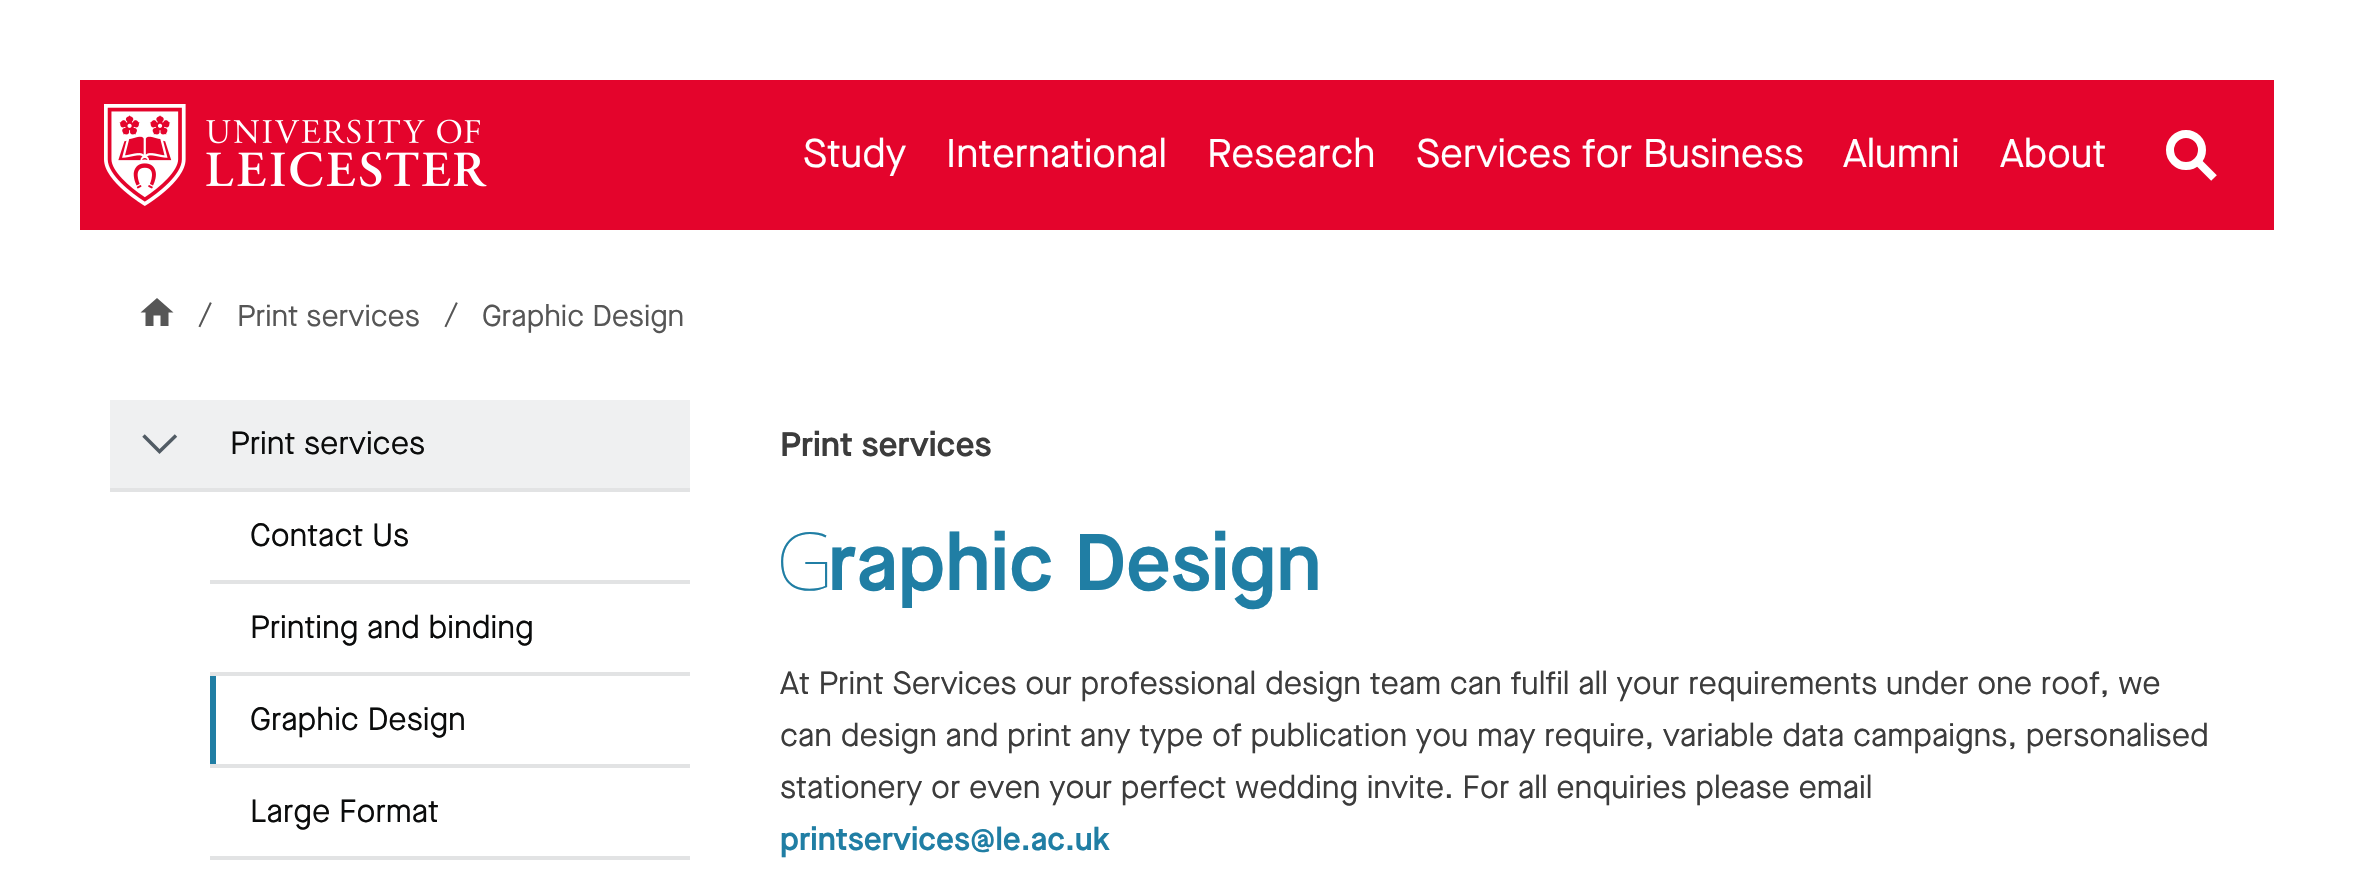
#include "include/core/SkBlurTypes.h"
#include "include/core/SkCanvas.h"
#include "include/core/SkData.h"
#include "include/core/SkFont.h"
#include "include/core/SkFontMgr.h"
#include "include/core/SkImage.h"
#include "include/core/SkMaskFilter.h"
#include "include/core/SkPaint.h"
#include "include/core/SkPathBuilder.h"
#include "include/core/SkTextBlob.h"
#include "include/effects/SkDashPathEffect.h"
#include "include/effects/SkGradientShader.h"
#include "include/utils/SkParsePath.h"

extern sk_sp<SkFontMgr> fontMgr;

void draw(SkCanvas* canvas) {
    SkPaint p;
    p.setAntiAlias(true);
    auto font = [&](const char* family, int weight, float size, bool italic = false) {
        SkFontStyle style(weight, SkFontStyle::kNormal_Width,
            italic ? SkFontStyle::kItalic_Slant : SkFontStyle::kUpright_Slant);
        SkFont result(fontMgr->matchFamilyStyle(family, style), size);
        result.setSubpixel(true);
        return result;
    };
    auto drawPhoto = [&](const char* path, float l, float t, float r, float b) {
        auto image = SkImages::DeferredFromEncodedData(SkData::MakeFromFileName(path));
        canvas->drawImageRect(image, SkRect::MakeLTRB(l, t, r, b), SkSamplingOptions());
    };
    canvas->clear(0xFFFFFFFF);
    p.setColor(0xFFE4042C);
    canvas->drawRect(SkRect::MakeLTRB(80, 80, 2274, 230), p);
    drawPhoto("media/1.png", 104, 104, 487, 206);
    auto font1 = font("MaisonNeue", 400, 40);
    p.setColor(0xFFFFFFFF);
    {
        const struct { const char* s; float x, y; } items[] = {
            {"Study", 803, 167},
            {"International", 946, 167},
            {"Research", 1207, 167},
            {"Services for Business", 1416, 167},
            {"Alumni", 1843, 167},
            {"About", 2000, 167},
        };
        for (auto [s, x, y] : items) {
            canvas->drawString(s, x, y, font1, p);
        }
    }
    p.setStyle(SkPaint::kStroke_Style);
    p.setStrokeWidth(8);
    canvas->drawPath(SkPathBuilder().moveTo(2198, 162).lineTo(2214, 178).detach(), p);
    canvas->drawCircle(2186, 150, 16, p);
    p.setStyle(SkPaint::kFill_Style);
    p.setColor(0xFF565656);
    canvas->drawPath(SkPathBuilder().moveTo(157, 298).lineTo(140.5f, 312.5f).lineTo(145.5f, 312.5f).lineTo(145.5f, 326).lineTo(153.5f, 326).lineTo(153.5f, 315.5f).lineTo(160.5f, 315.5f).lineTo(160.5f, 326).lineTo(168.5f, 326).lineTo(168.5f, 312.5f).lineTo(173.5f, 312.5f).close().detach(), p);
    auto font2 = font("MaisonNeue", 400, 32);
    canvas->drawString("/", 198, 326, font2, p);
    auto font3 = font("MaisonNeue", 400, 30);
    canvas->drawString("Print services", 237, 326, font3, p);
    canvas->drawString("/", 444, 326, font2, p);
    canvas->drawString("Graphic Design", 482, 326, font3, p);
    p.setColor(0xFFEFF0F1);
    canvas->drawRect(SkRect::MakeLTRB(110, 400, 690, 488), p);
    p.setColor(0xFFE2E3E4);
    canvas->drawRect(SkRect::MakeLTRB(110, 488, 690, 492), p);
    p.setStyle(SkPaint::kStroke_Style);
    p.setStrokeWidth(3.5f);
    p.setColor(0xFF515B64);
    canvas->drawPath(SkPathBuilder().moveTo(176, 435.5f).lineTo(159.5f, 451.5f).lineTo(143.5f, 435.5f).detach(), p);
    p.setStyle(SkPaint::kFill_Style);
    p.setColor(0xFF0B0C0C);
    canvas->drawString("Print services", 230, 454, font2, p);
    p.setColor(0xFFE2E3E4);
    canvas->drawRect(SkRect::MakeLTRB(210, 580, 690, 584), p);
    p.setColor(0xFF0B0C0C);
    canvas->drawString("Contact Us", 250, 546, font2, p);
    p.setColor(0xFFE2E3E4);
    canvas->drawRect(SkRect::MakeLTRB(210, 672, 690, 676), p);
    p.setColor(0xFF0B0C0C);
    canvas->drawString("Printing and binding", 250, 638, font2, p);
    p.setColor(0xFFE2E3E4);
    canvas->drawRect(SkRect::MakeLTRB(210, 764, 690, 768), p);
    p.setColor(0xFF207EA4);
    canvas->drawRect(SkRect::MakeLTRB(210, 676, 216, 764), p);
    p.setColor(0xFF0B0C0C);
    canvas->drawString("Graphic Design", 250, 730, font2, p);
    p.setColor(0xFFE2E3E4);
    canvas->drawRect(SkRect::MakeLTRB(210, 856, 690, 860), p);
    p.setColor(0xFF0B0C0C);
    canvas->drawString("Large Format", 250, 822, font2, p);
    auto font4 = font("MaisonNeue", 600, 34);
    p.setColor(0xFF3C3C3C);
    canvas->drawString("Print services", 780, 456, font4, p);
    auto font5 = font("Noto Sans", 100, 80);
    p.setColor(0xFF207EA4);
    canvas->drawString("G", 776, 590, font5, p);
    auto font6 = font("MaisonNeue", 600, 80);
    canvas->drawString("raphic Design", 828, 590, font6, p);
    p.setColor(0xFF3C3C3C);
    {
        const struct { const char* s; float x, y; } items[] = {
            {"At Print Services our professional design team can fulfil all your requirements under one roof, we", 780, 694},
            {"can design and print any type of publication you may require, variable data campaigns, personalised", 780, 746},
            {"stationery or even your perfect wedding invite. For all enquiries please email", 780, 798},
        };
        for (auto [s, x, y] : items) {
            canvas->drawString(s, x, y, font2, p);
        }
    }
    auto font7 = font("MaisonNeue", 600, 32);
    p.setColor(0xFF207EA4);
    canvas->drawString("printservices@le.ac.uk", 780, 850, font7, p);
}
